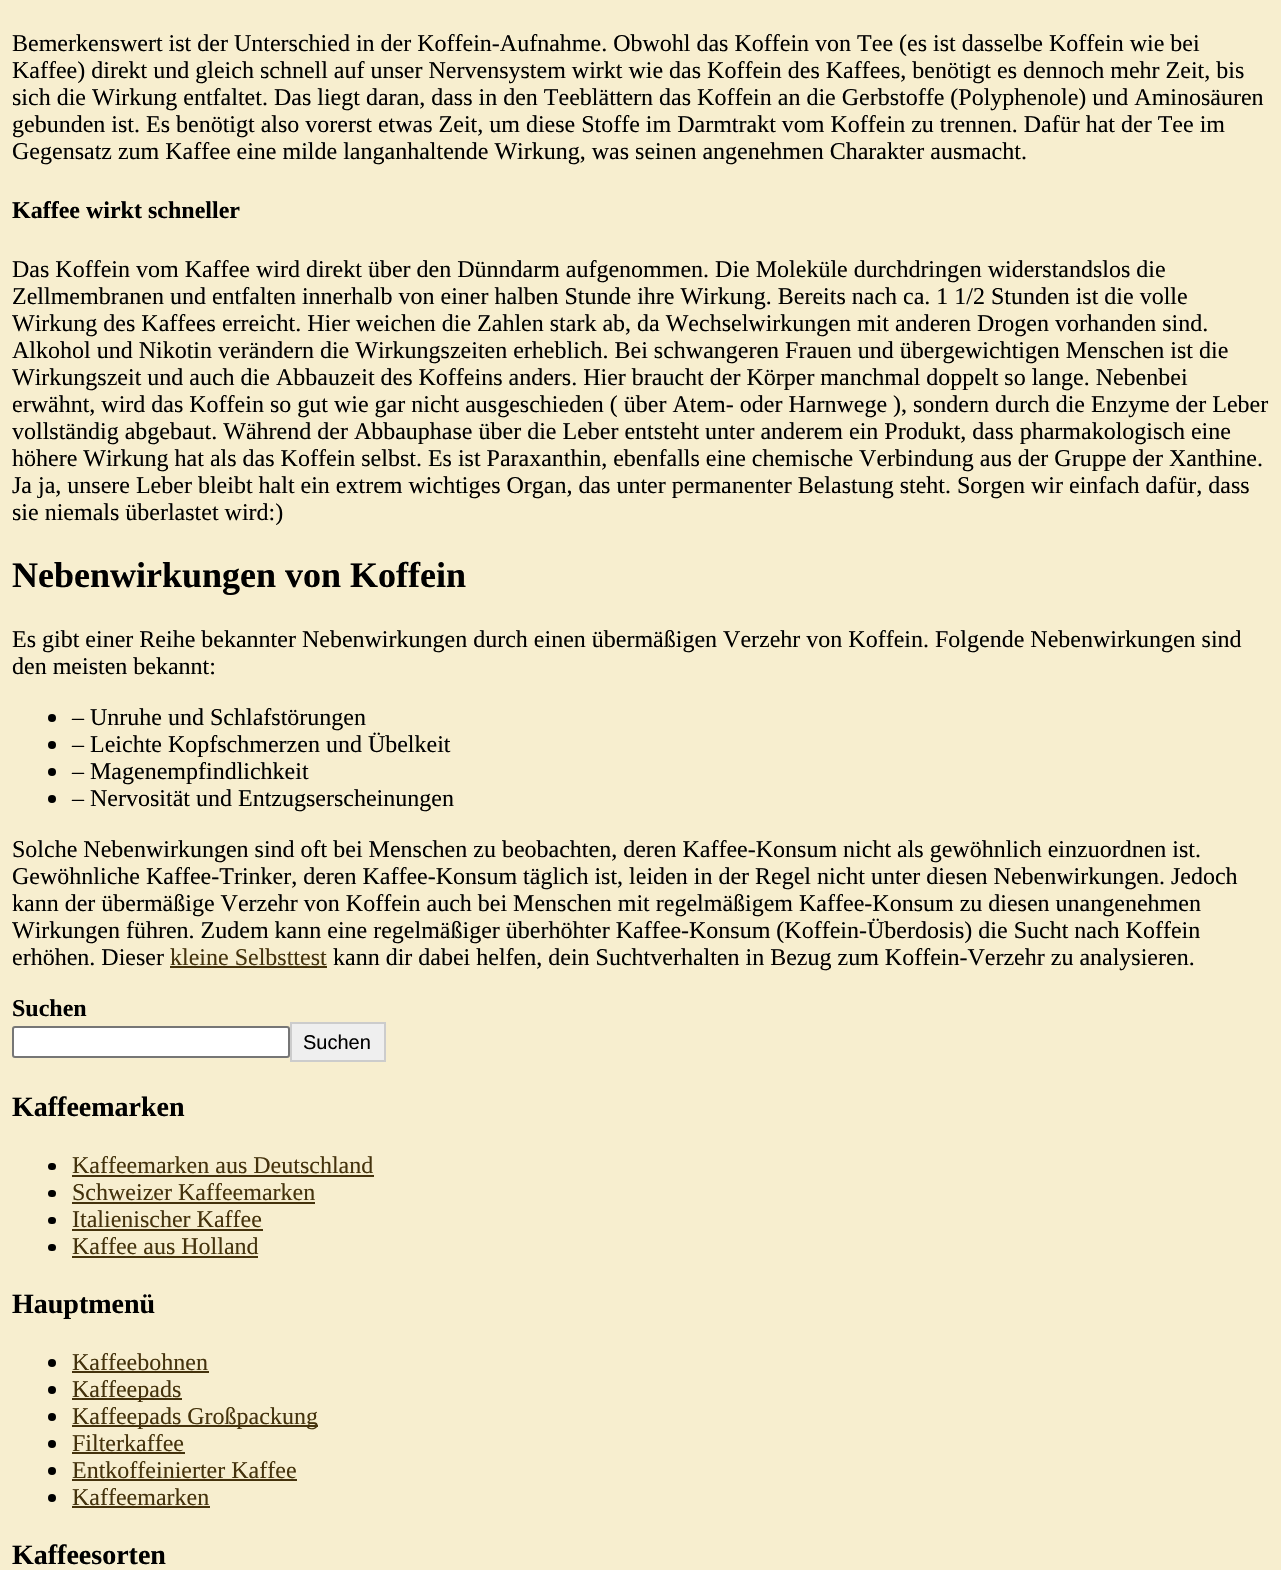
#include "include/core/SkBlurTypes.h"
#include "include/core/SkCanvas.h"
#include "include/core/SkData.h"
#include "include/core/SkFont.h"
#include "include/core/SkFontMgr.h"
#include "include/core/SkImage.h"
#include "include/core/SkMaskFilter.h"
#include "include/core/SkPaint.h"
#include "include/core/SkPathBuilder.h"
#include "include/core/SkTextBlob.h"
#include "include/effects/SkDashPathEffect.h"
#include "include/effects/SkGradientShader.h"
#include "include/utils/SkParsePath.h"

extern sk_sp<SkFontMgr> fontMgr;

void draw(SkCanvas* canvas) {
    SkPaint p;
    p.setAntiAlias(true);
    auto font = [&](const char* family, int weight, float size, bool italic = false) {
        SkFontStyle style(weight, SkFontStyle::kNormal_Width,
            italic ? SkFontStyle::kItalic_Slant : SkFontStyle::kUpright_Slant);
        SkFont result(fontMgr->matchFamilyStyle(family, style), size);
        result.setSubpixel(true);
        return result;
    };
    canvas->clear(0xFFF7EECF);
    auto font1 = font("Liberation Serif", 400, 24);
    p.setColor(0xFF000000);
    {
        const struct { const char* s; float x, y; } items[] = {
            {"Bemerkenswert ist der Unterschied in der Koffein-Aufnahme. Obwohl das Koffein von Tee (es ist dasselbe Koffein wie bei", 12, 51},
            {"Kaffee) direkt und gleich schnell auf unser Nervensystem wirkt wie das Koffein des Kaffees, benötigt es dennoch mehr Zeit, bis", 12, 78},
            {"sich die Wirkung entfaltet. Das liegt daran, dass in den Teeblättern das Koffein an die Gerbstoffe (Polyphenole) und Aminosäuren", 12, 105},
            {"gebunden ist. Es benötigt also vorerst etwas Zeit, um diese Stoffe im Darmtrakt vom Koffein zu trennen. Dafür hat der Tee im", 12, 132},
            {"Gegensatz zum Kaffee eine milde langanhaltende Wirkung, was seinen angenehmen Charakter ausmacht.", 12, 159},
        };
        for (auto [s, x, y] : items) {
            canvas->drawString(s, x, y, font1, p);
        }
    }
    auto font2 = font("Liberation Serif", 700, 24);
    canvas->drawString("Kaffee wirkt schneller", 12, 218, font2, p);
    {
        const struct { const char* s; float x, y; } items[] = {
            {"Das Koffein vom Kaffee wird direkt über den Dünndarm aufgenommen. Die Moleküle durchdringen widerstandslos die", 12, 277},
            {"Zellmembranen und entfalten innerhalb von einer halben Stunde ihre Wirkung. Bereits nach ca. 1 1/2 Stunden ist die volle", 12, 304},
            {"Wirkung des Kaffees erreicht. Hier weichen die Zahlen stark ab, da Wechselwirkungen mit anderen Drogen vorhanden sind.", 12, 331},
            {"Alkohol und Nikotin verändern die Wirkungszeiten erheblich. Bei schwangeren Frauen und übergewichtigen Menschen ist die", 12, 358},
            {"Wirkungszeit und auch die Abbauzeit des Koffeins anders. Hier braucht der Körper manchmal doppelt so lange. Nebenbei", 12, 385},
            {"erwähnt, wird das Koffein so gut wie gar nicht ausgeschieden ( über Atem- oder Harnwege ), sondern durch die Enzyme der Leber", 12, 412},
            {"vollständig abgebaut. Während der Abbauphase über die Leber entsteht unter anderem ein Produkt, dass pharmakologisch eine", 12, 439},
            {"höhere Wirkung hat als das Koffein selbst. Es ist Paraxanthin, ebenfalls eine chemische Verbindung aus der Gruppe der Xanthine.", 12, 466},
            {"Ja ja, unsere Leber bleibt halt ein extrem wichtiges Organ, das unter permanenter Belastung steht. Sorgen wir einfach dafür, dass", 12, 493},
            {"sie niemals überlastet wird:)", 12, 520},
        };
        for (auto [s, x, y] : items) {
            canvas->drawString(s, x, y, font1, p);
        }
    }
    auto font3 = font("Liberation Serif", 700, 36);
    canvas->drawString("Nebenwirkungen von Koffein", 12, 587, font3, p);
    canvas->drawString("Es gibt einer Reihe bekannter Nebenwirkungen durch einen übermäßigen Verzehr von Koffein. Folgende Nebenwirkungen sind", 12, 647, font1, p);
    canvas->drawString("den meisten bekannt:", 12, 674, font1, p);
    canvas->drawCircle(52, 718, 4, p);
    canvas->drawString("– Unruhe und Schlafstörungen", 72, 725, font1, p);
    canvas->drawCircle(52, 745, 4, p);
    canvas->drawString("– Leichte Kopfschmerzen und Übelkeit", 72, 752, font1, p);
    canvas->drawCircle(52, 772, 4, p);
    canvas->drawString("– Magenempfindlichkeit", 72, 779, font1, p);
    canvas->drawCircle(52, 799, 4, p);
    {
        const struct { const char* s; float x, y; } items[] = {
            {"– Nervosität und Entzugserscheinungen", 72, 806},
            {"Solche Nebenwirkungen sind oft bei Menschen zu beobachten, deren Kaffee-Konsum nicht als gewöhnlich einzuordnen ist.", 12, 857},
            {"Gewöhnliche Kaffee-Trinker, deren Kaffee-Konsum täglich ist, leiden in der Regel nicht unter diesen Nebenwirkungen. Jedoch", 12, 884},
            {"kann der übermäßige Verzehr von Koffein auch bei Menschen mit regelmäßigem Kaffee-Konsum zu diesen unangenehmen", 12, 911},
            {"Wirkungen führen. Zudem kann eine regelmäßiger überhöhter Kaffee-Konsum (Koffein-Überdosis) die Sucht nach Koffein", 12, 938},
            {"erhöhen. Dieser", 12, 965},
        };
        for (auto [s, x, y] : items) {
            canvas->drawString(s, x, y, font1, p);
        }
    }
    p.setColor(0xFF44320C);
    canvas->drawString("kleine Selbsttest", 170, 965, font1, p);
    canvas->drawRect(SkRect::MakeLTRB(170, 966, 327, 968), p);
    p.setColor(0xFF000000);
    canvas->drawString("kann dir dabei helfen, dein Suchtverhalten in Bezug zum Koffein-Verzehr zu analysieren.", 333, 965, font1, p);
    canvas->drawString("Suchen", 12, 1016, font2, p);
    p.setColor(0xFFFFFFFF);
    canvas->drawRoundRect(SkRect::MakeLTRB(13, 1027, 289, 1057), 2, 2, p);
    p.setStyle(SkPaint::kStroke_Style);
    p.setStrokeWidth(2);
    p.setColor(0xFF767676);
    canvas->drawRoundRect(SkRect::MakeLTRB(13, 1027, 289, 1057), 2, 2, p);
    p.setStyle(SkPaint::kFill_Style);
    p.setColor(0xFFEFEFEF);
    canvas->drawRect(SkRect::MakeLTRB(291, 1023, 385, 1061), p);
    p.setStyle(SkPaint::kStroke_Style);
    p.setColor(0xFFCCCCCC);
    canvas->drawRect(SkRect::MakeLTRB(291, 1023, 385, 1061), p);
    auto font4 = font("Liberation Sans", 400, 20);
    p.setStyle(SkPaint::kFill_Style);
    p.setColor(0xFF000000);
    canvas->drawString("Suchen", 303, 1049, font4, p);
    auto font5 = font("Liberation Serif", 700, 28);
    canvas->drawString("Kaffeemarken", 12, 1116, font5, p);
    canvas->drawRoundRect(SkRect::MakeLTRB(48, 1163, 56, 1170), 3.5f, 3.5f, p);
    p.setColor(0xFF44320C);
    canvas->drawString("Kaffeemarken aus Deutschland", 72, 1173, font1, p);
    canvas->drawRect(SkRect::MakeLTRB(72, 1175, 374, 1177), p);
    p.setColor(0xFF000000);
    canvas->drawRoundRect(SkRect::MakeLTRB(48, 1190, 56, 1197), 3.5f, 3.5f, p);
    p.setColor(0xFF44320C);
    canvas->drawString("Schweizer Kaffeemarken", 72, 1200, font1, p);
    canvas->drawRect(SkRect::MakeLTRB(72, 1202, 315, 1204), p);
    p.setColor(0xFF000000);
    canvas->drawRoundRect(SkRect::MakeLTRB(48, 1217, 56, 1224), 3.5f, 3.5f, p);
    p.setColor(0xFF44320C);
    canvas->drawString("Italienischer Kaffee", 72, 1227, font1, p);
    canvas->drawRect(SkRect::MakeLTRB(72, 1229, 263, 1231), p);
    p.setColor(0xFF000000);
    canvas->drawRoundRect(SkRect::MakeLTRB(48, 1244, 56, 1251), 3.5f, 3.5f, p);
    p.setColor(0xFF44320C);
    canvas->drawString("Kaffee aus Holland", 72, 1254, font1, p);
    canvas->drawRect(SkRect::MakeLTRB(72, 1256, 258, 1258), p);
    p.setColor(0xFF000000);
    canvas->drawString("Hauptmenü", 12, 1313, font5, p);
    canvas->drawCircle(52, 1363, 4, p);
    p.setColor(0xFF44320C);
    canvas->drawString("Kaffeebohnen", 72, 1370, font1, p);
    canvas->drawRect(SkRect::MakeLTRB(72, 1371, 209, 1373), p);
    p.setColor(0xFF000000);
    canvas->drawCircle(52, 1390, 4, p);
    p.setColor(0xFF44320C);
    canvas->drawRect(SkRect::MakeLTRB(72, 1398, 182, 1400), p);
    canvas->drawString("Kaffeepads", 72, 1397, font1, p);
    p.setColor(0xFF000000);
    canvas->drawCircle(52, 1417, 4, p);
    p.setColor(0xFF44320C);
    canvas->drawRect(SkRect::MakeLTRB(72, 1425, 318, 1427), p);
    canvas->drawString("Kaffeepads Großpackung", 72, 1424, font1, p);
    p.setColor(0xFF000000);
    canvas->drawCircle(52, 1444, 4, p);
    p.setColor(0xFF44320C);
    canvas->drawString("Filterkaffee", 72, 1451, font1, p);
    canvas->drawRect(SkRect::MakeLTRB(72, 1452, 185, 1454), p);
    p.setColor(0xFF000000);
    canvas->drawCircle(52, 1471, 4, p);
    p.setColor(0xFF44320C);
    canvas->drawString("Entkoffeinierter Kaffee", 72, 1478, font1, p);
    canvas->drawRect(SkRect::MakeLTRB(72, 1479, 297, 1481), p);
    p.setColor(0xFF000000);
    canvas->drawCircle(52, 1498, 4, p);
    p.setColor(0xFF44320C);
    canvas->drawString("Kaffeemarken", 72, 1505, font1, p);
    canvas->drawRect(SkRect::MakeLTRB(72, 1506, 210, 1508), p);
    p.setColor(0xFF000000);
    canvas->drawString("Kaffeesorten", 12, 1564, font5, p);
}
